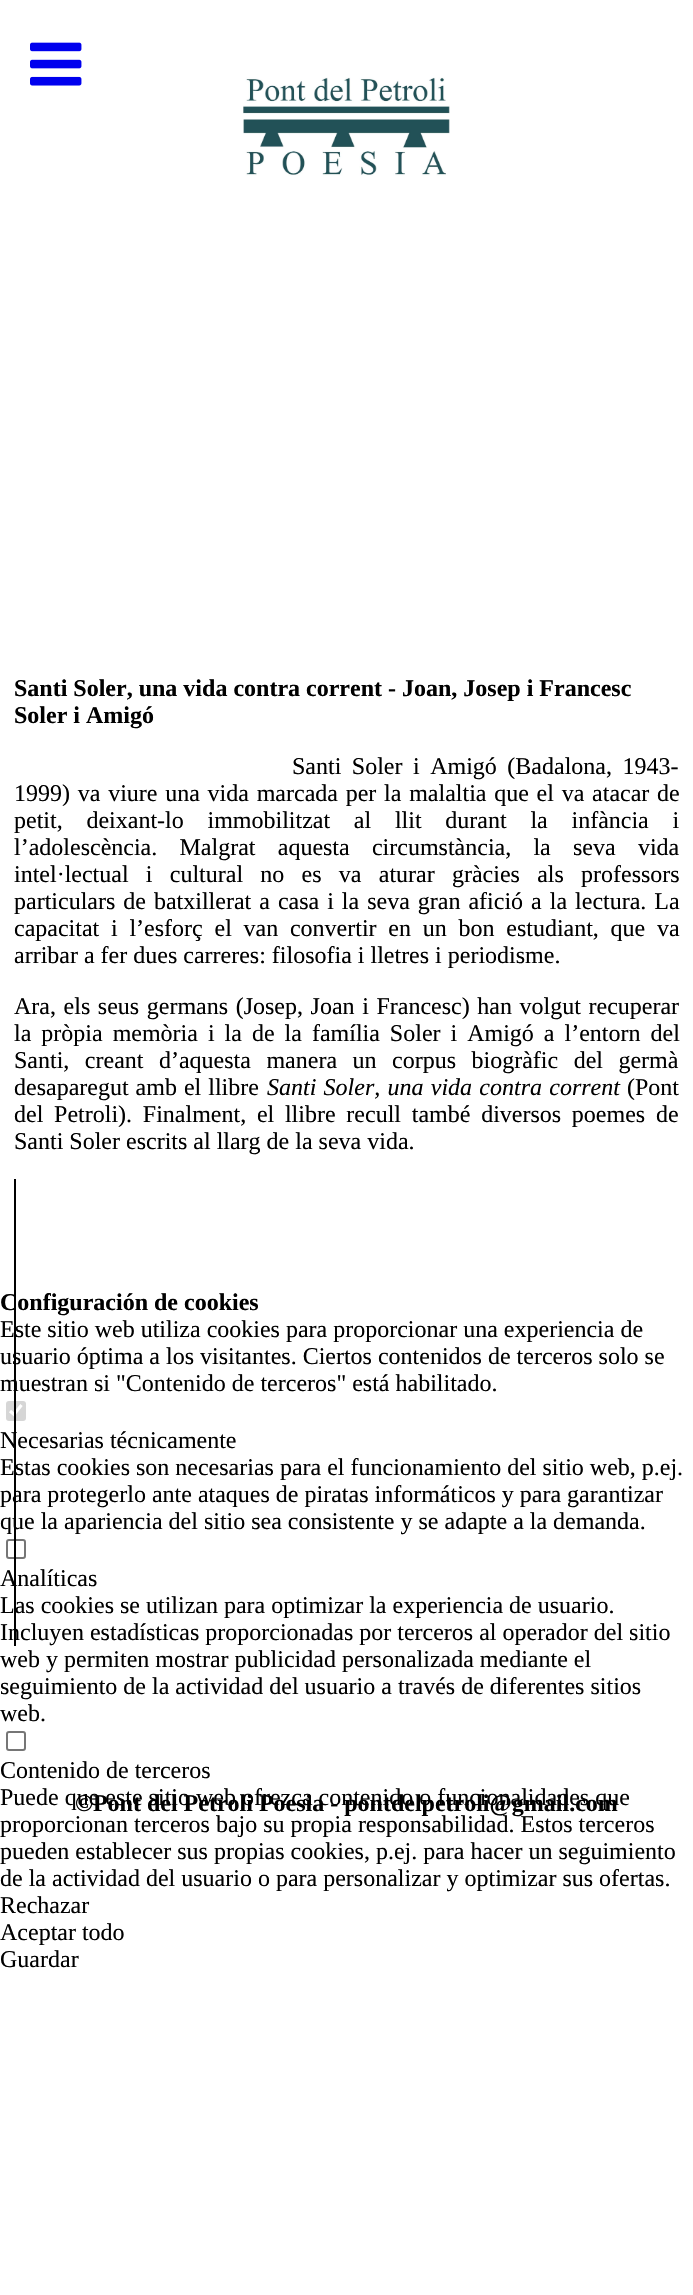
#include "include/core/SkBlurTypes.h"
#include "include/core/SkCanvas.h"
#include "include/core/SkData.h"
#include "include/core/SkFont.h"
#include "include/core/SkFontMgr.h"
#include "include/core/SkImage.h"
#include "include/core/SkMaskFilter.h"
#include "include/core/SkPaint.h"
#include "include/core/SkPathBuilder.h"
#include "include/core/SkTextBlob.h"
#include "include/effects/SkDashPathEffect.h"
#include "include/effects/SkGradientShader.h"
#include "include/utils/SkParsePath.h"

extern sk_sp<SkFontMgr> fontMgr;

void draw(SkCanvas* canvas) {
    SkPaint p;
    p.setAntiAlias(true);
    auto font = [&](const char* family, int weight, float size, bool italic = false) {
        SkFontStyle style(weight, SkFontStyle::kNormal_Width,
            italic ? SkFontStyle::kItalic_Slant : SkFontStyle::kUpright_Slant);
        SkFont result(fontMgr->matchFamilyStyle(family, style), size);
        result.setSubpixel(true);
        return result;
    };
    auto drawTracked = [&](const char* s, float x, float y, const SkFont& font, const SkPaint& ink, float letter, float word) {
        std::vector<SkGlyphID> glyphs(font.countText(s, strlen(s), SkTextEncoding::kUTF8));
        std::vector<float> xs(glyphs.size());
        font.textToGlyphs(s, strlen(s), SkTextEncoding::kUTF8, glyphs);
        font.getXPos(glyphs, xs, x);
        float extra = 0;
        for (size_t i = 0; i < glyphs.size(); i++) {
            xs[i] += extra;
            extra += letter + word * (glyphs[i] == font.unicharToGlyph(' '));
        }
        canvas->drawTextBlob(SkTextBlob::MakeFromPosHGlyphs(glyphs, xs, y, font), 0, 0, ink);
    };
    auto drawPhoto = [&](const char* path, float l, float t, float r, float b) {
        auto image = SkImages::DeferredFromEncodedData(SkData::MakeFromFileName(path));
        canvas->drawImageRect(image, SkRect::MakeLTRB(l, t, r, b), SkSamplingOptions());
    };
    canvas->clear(0xFFFFFFFF);
    drawPhoto("media/1.png", 30, 42, 82, 86);
    drawPhoto("media/2.png", 243, 77, 450, 176);
    auto font1 = font("Liberation Serif", 700, 24);
    p.setColor(0xFF000000);
    canvas->drawString("Santi Soler, una vida contra corrent - Joan, Josep i Francesc", 14, 696, font1, p);
    canvas->drawString("Soler i Amigó", 14, 723, font1, p);
    auto font2 = font("Liberation Serif", 400, 24);
    drawTracked("Santi Soler i Amigó (Badalona, 1943-", 292, 774, font2, p, 0, 4.5f);
    drawTracked("1999) va viure una vida marcada per la malaltia que el va atacar de", 14, 801, font2, p, 0, 1.75f);
    drawTracked("petit, deixant-lo immobilitzat al llit durant la infància i", 14, 828, font2, p, 0, 17.75f);
    drawTracked("l’adolescència. Malgrat aquesta circumstància, la seva vida", 14, 855, font2, p, 0, 16.25f);
    drawTracked("intel·lectual i cultural no es va aturar gràcies als professors", 14, 882, font2, p, 0, 11.25f);
    drawTracked("particulars de batxillerat a casa i la seva gran afició a la lectura. La", 14, 909, font2, p, 0, 2);
    drawTracked("capacitat i l’esforç el van convertir en un bon estudiant, que va", 14, 936, font2, p, 0, 5.75f);
    canvas->drawString("arribar a fer dues carreres: filosofia i lletres i periodisme.", 14, 963, font2, p);
    drawTracked("Ara, els seus germans (Josep, Joan i Francesc) han volgut recuperar", 14, 1014, font2, p, 0, 1.6f);
    drawTracked("la pròpia memòria i la de la família Soler i Amigó a l’entorn del", 14, 1041, font2, p, 0, 4);
    drawTracked("Santi, creant d’aquesta manera un corpus biogràfic del germà", 14, 1068, font2, p, 0, 9.5f);
    drawTracked("desaparegut amb el llibre", 14, 1095, font2, p, 0, 1);
    auto font3 = font("Liberation Serif", 400, 24, true);
    drawTracked("Santi Soler, una vida contra corrent", 267, 1095, font3, p, 0, 1.25f);
    canvas->drawString("(Pont", 627, 1095, font2, p);
    drawTracked("del Petroli). Finalment, el llibre recull també diversos poemes de", 14, 1122, font2, p, 0, 4.75f);
    canvas->drawString("Santi Soler escrits al llarg de la seva vida.", 14, 1149, font2, p);
    p.setColor(0xFFD6D6D6);
    canvas->drawRoundRect(SkRect::MakeLTRB(6, 1401, 26, 1421), 3, 3, p);
    p.setStyle(SkPaint::kStroke_Style);
    p.setStrokeWidth(3.1f);
    p.setColor(0xFFFFFFFF);
    canvas->drawPath(SkPathBuilder().moveTo(10, 1411).lineTo(14, 1414.5f).lineTo(21.5f, 1405).detach(), p);
    p.setStrokeWidth(2);
    p.setColor(0xFF767676);
    canvas->drawRoundRect(SkRect::MakeLTRB(7, 1540, 25, 1558), 2, 2, p);
    p.setStyle(SkPaint::kFill_Style);
    p.setColor(0xFF000000);
    canvas->drawRect(SkRect::MakeLTRB(14, 1179, 16, 1646), p);
    canvas->drawString("©Pont del Petroli Poesia - pontdelpetroli@gmail.com", 75, 1811, font1, p);
    canvas->drawString("Configuración de cookies", 0, 1310, font1, p);
    {
        const struct { const char* s; float x, y; } items[] = {
            {"Este sitio web utiliza cookies para proporcionar una experiencia de", 0, 1337},
            {"usuario óptima a los visitantes. Ciertos contenidos de terceros solo se", 0, 1364},
            {"muestran si \"Contenido de terceros\" está habilitado.", 0, 1391},
            {"Necesarias técnicamente", 0, 1448},
            {"Estas cookies son necesarias para el funcionamiento del sitio web, p.ej.", 0, 1475},
            {"para protegerlo ante ataques de piratas informáticos y para garantizar", 0, 1502},
            {"que la apariencia del sitio sea consistente y se adapte a la demanda.", 0, 1529},
            {"Analíticas", 0, 1586},
            {"Las cookies se utilizan para optimizar la experiencia de usuario.", 0, 1613},
            {"Incluyen estadísticas proporcionadas por terceros al operador del sitio", 0, 1640},
            {"web y permiten mostrar publicidad personalizada mediante el", 0, 1667},
            {"seguimiento de la actividad del usuario a través de diferentes sitios", 0, 1694},
            {"web.", 0, 1721},
        };
        for (auto [s, x, y] : items) {
            canvas->drawString(s, x, y, font2, p);
        }
    }
    p.setStyle(SkPaint::kStroke_Style);
    p.setColor(0xFF767676);
    canvas->drawRoundRect(SkRect::MakeLTRB(7, 1732, 25, 1750), 2, 2, p);
    p.setStyle(SkPaint::kFill_Style);
    p.setColor(0xFF000000);
    {
        const struct { const char* s; float x, y; } items[] = {
            {"Contenido de terceros", 0, 1778},
            {"Puede que este sitio web ofrezca contenido o funcionalidades que", 0, 1805},
            {"proporcionan terceros bajo su propia responsabilidad. Estos terceros", 0, 1832},
            {"pueden establecer sus propias cookies, p.ej. para hacer un seguimiento", 0, 1859},
            {"de la actividad del usuario o para personalizar y optimizar sus ofertas.", 0, 1886},
            {"Rechazar", 0, 1913},
            {"Aceptar todo", 0, 1940},
            {"Guardar", 0, 1967},
        };
        for (auto [s, x, y] : items) {
            canvas->drawString(s, x, y, font2, p);
        }
    }
}
